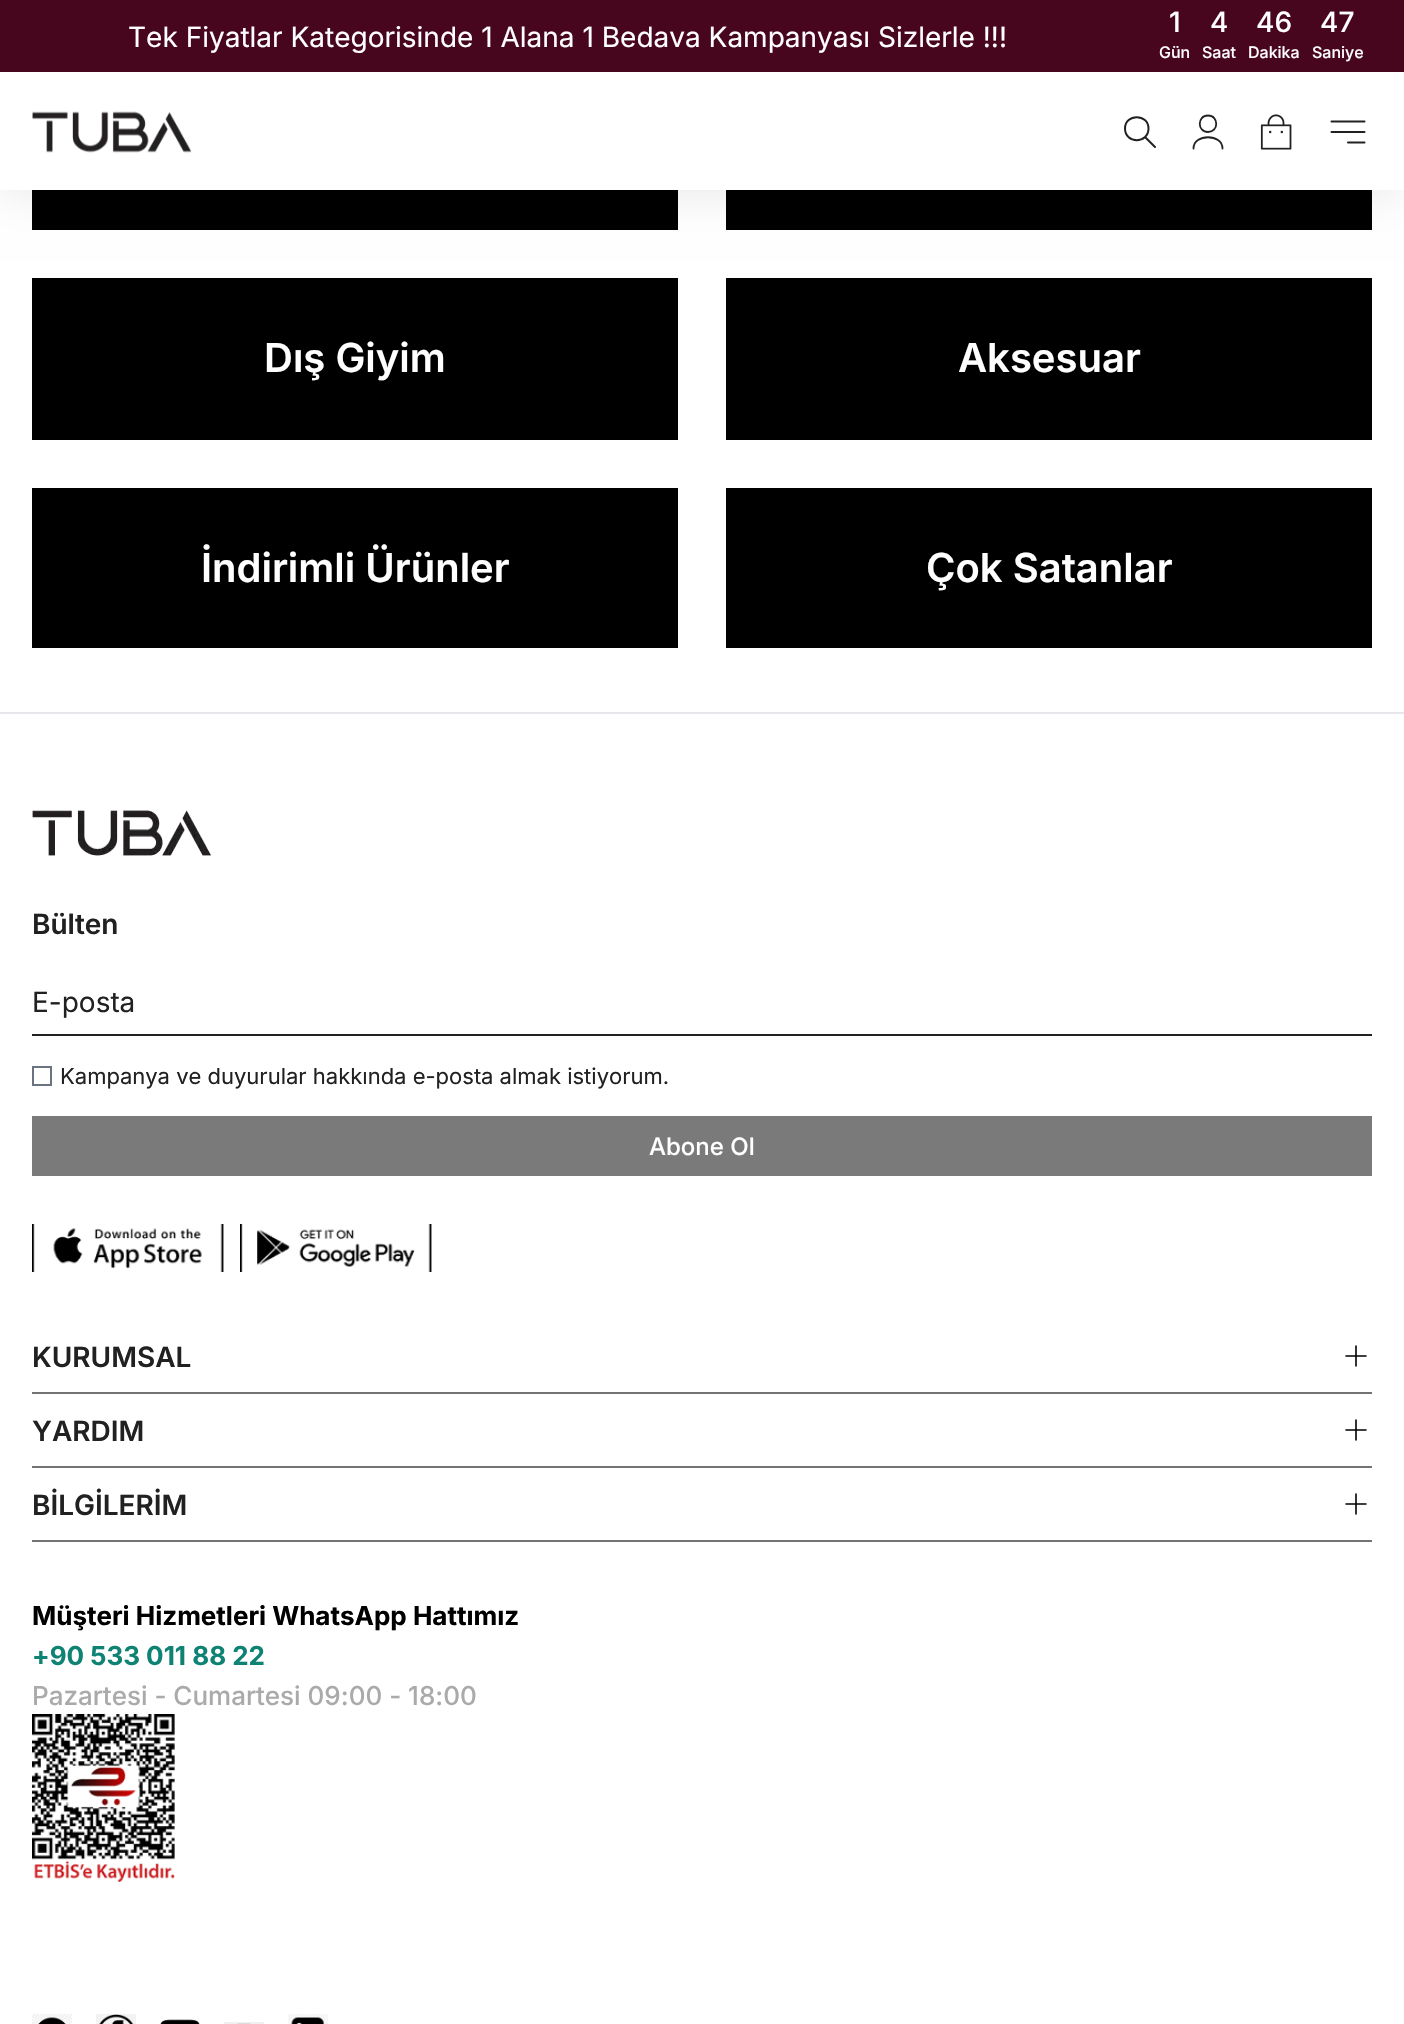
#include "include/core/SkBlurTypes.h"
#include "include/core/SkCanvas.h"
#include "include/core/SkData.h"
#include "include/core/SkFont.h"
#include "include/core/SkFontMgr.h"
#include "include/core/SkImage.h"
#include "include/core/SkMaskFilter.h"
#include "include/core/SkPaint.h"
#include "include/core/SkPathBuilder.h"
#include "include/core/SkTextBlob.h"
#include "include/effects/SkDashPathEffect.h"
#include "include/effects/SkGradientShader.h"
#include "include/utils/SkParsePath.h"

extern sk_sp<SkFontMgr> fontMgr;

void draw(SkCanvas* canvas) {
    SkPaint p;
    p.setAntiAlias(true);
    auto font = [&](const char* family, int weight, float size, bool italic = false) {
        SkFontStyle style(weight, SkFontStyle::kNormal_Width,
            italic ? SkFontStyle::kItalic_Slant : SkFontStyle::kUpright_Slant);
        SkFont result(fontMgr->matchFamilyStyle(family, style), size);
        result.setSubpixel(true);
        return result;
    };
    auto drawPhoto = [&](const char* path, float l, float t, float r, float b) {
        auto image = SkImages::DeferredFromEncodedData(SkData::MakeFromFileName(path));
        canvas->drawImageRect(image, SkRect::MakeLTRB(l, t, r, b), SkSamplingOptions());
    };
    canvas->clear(0xFFFFFFFF);
    p.setColor(0xFF000000);
    canvas->drawRect(SkRect::MakeLTRB(32, 190, 678, 230), p);
    canvas->drawRect(SkRect::MakeLTRB(726, 190, 1372, 230), p);
    p.setColor(0x1A000000);
    p.setMaskFilter(SkMaskFilter::MakeBlur(kNormal_SkBlurStyle, 24));
    canvas->drawRect(SkRect::MakeLTRB(0, 0, 1404, 190), p);
    p.setMaskFilter(nullptr);
    p.setColor(0xFFFFFFFF);
    canvas->drawRect(SkRect::MakeLTRB(0, 72, 1404, 190), p);
    p.setColor(0xFF48051E);
    canvas->drawRect(SkRect::MakeLTRB(0, 0, 1404, 72), p);
    auto font1 = font("Inter", 400, 28);
    p.setColor(0xFFFFFFFF);
    canvas->drawString("Tek Fiyatlar Kategorisinde 1 Alana 1 Bedava Kampanyası Sizlerle !!!", 128, 47, font1, p);
    auto font2 = font("Inter", 500, 28);
    canvas->drawString("1", 1169, 32, font2, p);
    auto font3 = font("Inter", 500, 16);
    canvas->drawString("Gün", 1159, 58, font3, p);
    canvas->drawString("4", 1210, 32, font2, p);
    canvas->drawString("Saat", 1202, 58, font3, p);
    canvas->drawString("46", 1256, 32, font2, p);
    canvas->drawString("Dakika", 1248, 58, font3, p);
    canvas->drawString("47", 1320, 32, font2, p);
    canvas->drawString("Saniye", 1312, 58, font3, p);
    drawPhoto("media/1.png", 32, 111, 192, 153);
    p.setStyle(SkPaint::kStroke_Style);
    p.setStrokeWidth(2);
    p.setStrokeCap(SkPaint::kRound_Cap);
    p.setStrokeJoin(SkPaint::kRound_Join);
    p.setColor(0xFF212121);
    canvas->drawPath(SkPathBuilder().moveTo(1125, 128.5f).cubicTo(1125, 144, 1148.5f, 144, 1148.5f, 128.5f).cubicTo(1148.5f, 113.5f, 1125, 113.5f, 1125, 128.5f).close().moveTo(1155, 147).lineTo(1145, 137).detach(), p);
    p.setStrokeWidth(1.8f);
    canvas->drawPath(SkPathBuilder().moveTo(1208, 132).cubicTo(1219, 132, 1219, 115.5f, 1208, 115.5f).cubicTo(1197, 115.5f, 1197, 132, 1208, 132).close().moveTo(1222.5f, 148.5f).cubicTo(1222.5f, 133.5f, 1193.5f, 133.5f, 1193.5f, 148.5f).detach(), p);
    drawPhoto("media/2.png", 1260, 114, 1292, 150);
    p.setStrokeWidth(2);
    canvas->drawPath(SkPathBuilder().moveTo(1331.5f, 121.5f).lineTo(1364.5f, 121.5f).moveTo(1331.5f, 132).lineTo(1364.5f, 132).moveTo(1348, 142.5f).lineTo(1364.5f, 142.5f).detach(), p);
    p.setStyle(SkPaint::kFill_Style);
    p.setColor(0xFF000000);
    canvas->drawRect(SkRect::MakeLTRB(32, 278, 678, 440), p);
    auto font4 = font("Inter", 600, 40);
    p.setColor(0xFFFFFFFF);
    canvas->drawString("Dış Giyim", 264, 372, font4, p);
    p.setColor(0xFF000000);
    canvas->drawRect(SkRect::MakeLTRB(726, 278, 1372, 440), p);
    p.setColor(0xFFFFFFFF);
    canvas->drawString("Aksesuar", 958, 372, font4, p);
    p.setColor(0xFF000000);
    canvas->drawRect(SkRect::MakeLTRB(32, 488, 678, 648), p);
    p.setColor(0xFFFFFFFF);
    canvas->drawString("İndirimli Ürünler", 201, 582, font4, p);
    p.setColor(0xFF000000);
    canvas->drawRect(SkRect::MakeLTRB(726, 488, 1372, 648), p);
    p.setColor(0xFFFFFFFF);
    canvas->drawString("Çok Satanlar", 926, 582, font4, p);
    p.setColor(0xFFE5E7EB);
    canvas->drawRect(SkRect::MakeLTRB(0, 712, 1404, 714), p);
    drawPhoto("media/3.png", 32, 810, 211, 856);
    auto font5 = font("Inter", 600, 28);
    p.setColor(0xFF212121);
    canvas->drawString("Bülten", 32, 934, font5, p);
    canvas->drawRect(SkRect::MakeLTRB(32, 1034, 1372, 1036), p);
    canvas->drawString("E-posta", 32, 1012, font1, p);
    p.setStyle(SkPaint::kStroke_Style);
    p.setStrokeCap(SkPaint::kButt_Cap);
    p.setStrokeJoin(SkPaint::kMiter_Join);
    p.setColor(0xFF6B7280);
    canvas->drawRect(SkRect::MakeLTRB(33, 1067, 51, 1085), p);
    auto font6 = font("Inter", 400, 22);
    p.setStyle(SkPaint::kFill_Style);
    p.setColor(0xFF212121);
    canvas->drawString("Kampanya ve duyurular hakkında e-posta almak istiyorum.", 60, 1084, font6, p);
    p.setColor(0xFF7A7A7A);
    canvas->drawRect(SkRect::MakeLTRB(32, 1116, 1372, 1176), p);
    auto font7 = font("Inter", 500, 24);
    p.setColor(0xFFFFFFFF);
    canvas->drawString("Abone Ol", 649, 1155, font7, p);
    drawPhoto("media/4.png", 32, 1224, 224, 1272);
    drawPhoto("media/5.png", 240, 1224, 432, 1272);
    p.setColor(0xFF737373);
    canvas->drawRect(SkRect::MakeLTRB(32, 1392, 1372, 1394), p);
    p.setColor(0xFF212121);
    canvas->drawString("KURUMSAL", 32, 1367, font5, p);
    p.setStyle(SkPaint::kStroke_Style);
    p.setStrokeWidth(1.6f);
    p.setStrokeCap(SkPaint::kRound_Cap);
    p.setStrokeJoin(SkPaint::kRound_Join);
    p.setColor(0xFF000000);
    canvas->drawPath(SkPathBuilder().moveTo(1356, 1346).lineTo(1356, 1366).moveTo(1366, 1356).lineTo(1346, 1356).detach(), p);
    p.setStyle(SkPaint::kFill_Style);
    p.setColor(0xFF737373);
    canvas->drawRect(SkRect::MakeLTRB(32, 1466, 1372, 1468), p);
    p.setColor(0xFF212121);
    canvas->drawString("YARDIM", 32, 1441, font5, p);
    p.setStyle(SkPaint::kStroke_Style);
    p.setColor(0xFF000000);
    canvas->drawPath(SkPathBuilder().moveTo(1356, 1420).lineTo(1356, 1440).moveTo(1366, 1430).lineTo(1346, 1430).detach(), p);
    p.setStyle(SkPaint::kFill_Style);
    p.setColor(0xFF737373);
    canvas->drawRect(SkRect::MakeLTRB(32, 1540, 1372, 1542), p);
    p.setColor(0xFF212121);
    canvas->drawString("BİLGİLERİM", 32, 1515, font5, p);
    p.setStyle(SkPaint::kStroke_Style);
    p.setColor(0xFF000000);
    canvas->drawPath(SkPathBuilder().moveTo(1356, 1494).lineTo(1356, 1514).moveTo(1366, 1504).lineTo(1346, 1504).detach(), p);
    auto font8 = font("Inter", 700, 26);
    p.setStyle(SkPaint::kFill_Style);
    canvas->drawString("Müşteri Hizmetleri WhatsApp Hattımız", 32, 1625, font8, p);
    p.setColor(0xFF0E8273);
    canvas->drawString("+90 533 011 88 22", 32, 1665, font8, p);
    auto font9 = font("Inter", 500, 26);
    p.setColor(0xFFAAAAAA);
    canvas->drawString("Pazartesi - Cumartesi 09:00 - 18:00", 32, 1705, font9, p);
    drawPhoto("media/6.png", 32, 1714, 175, 1882);
    drawPhoto("media/7.png", 32, 2014, 72, 2024);
    drawPhoto("media/8.png", 96, 2014, 136, 2024);
    drawPhoto("media/9.png", 160, 2019, 200, 2024);
    drawPhoto("media/10.png", 224, 2022, 264, 2024);
    drawPhoto("media/11.png", 288, 2014, 328, 2024);
}
